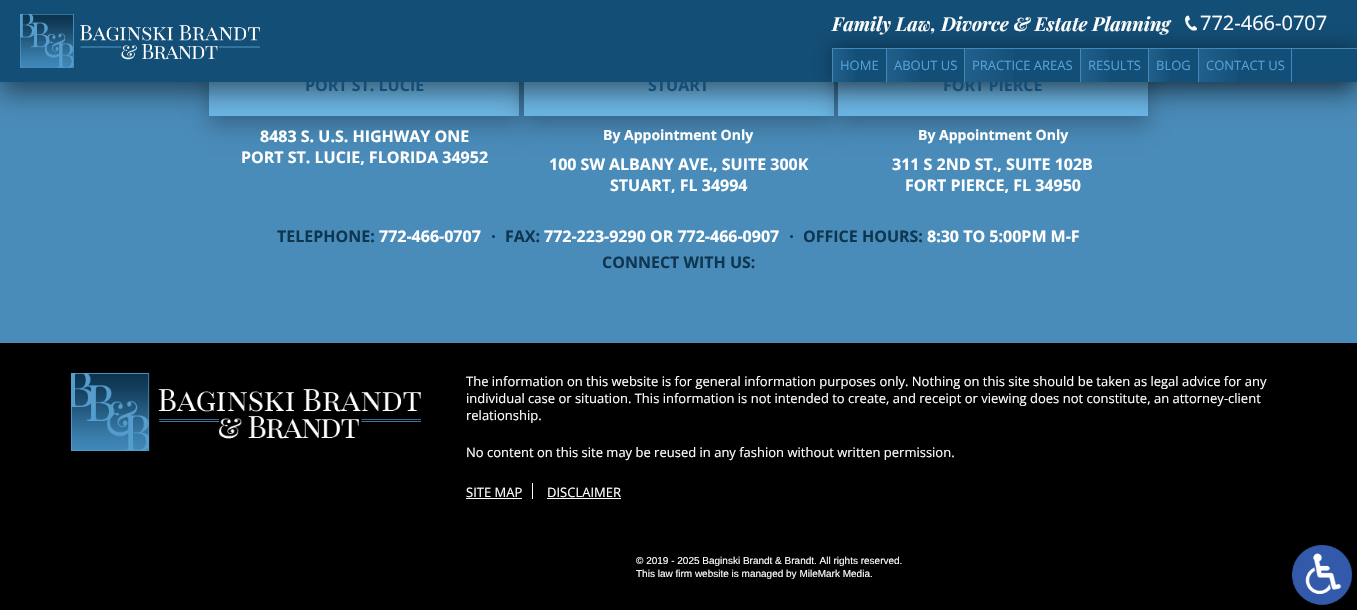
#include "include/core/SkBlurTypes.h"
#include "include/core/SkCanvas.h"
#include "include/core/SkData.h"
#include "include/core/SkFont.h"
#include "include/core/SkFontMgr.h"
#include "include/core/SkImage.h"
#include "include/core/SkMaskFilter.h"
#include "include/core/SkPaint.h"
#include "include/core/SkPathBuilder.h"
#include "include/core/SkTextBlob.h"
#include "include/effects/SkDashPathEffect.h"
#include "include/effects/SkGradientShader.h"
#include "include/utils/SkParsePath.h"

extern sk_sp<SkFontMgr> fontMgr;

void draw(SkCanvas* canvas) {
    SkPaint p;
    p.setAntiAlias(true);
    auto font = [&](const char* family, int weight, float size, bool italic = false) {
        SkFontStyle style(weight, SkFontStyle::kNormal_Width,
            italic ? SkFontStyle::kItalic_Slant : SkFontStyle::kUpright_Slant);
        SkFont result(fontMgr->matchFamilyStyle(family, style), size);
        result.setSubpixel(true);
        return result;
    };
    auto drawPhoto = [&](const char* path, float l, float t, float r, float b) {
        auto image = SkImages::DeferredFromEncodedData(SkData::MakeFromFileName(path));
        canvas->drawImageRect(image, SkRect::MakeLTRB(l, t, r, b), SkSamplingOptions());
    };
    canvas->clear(0xFF498BB9);
    p.setColor(0x40000000);
    p.setMaskFilter(SkMaskFilter::MakeBlur(kNormal_SkBlurStyle, 10));
    canvas->drawRect(SkRect::MakeLTRB(209, -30, 519, 126), p);
    p.setMaskFilter(nullptr);
    p.setColor(0xFF6CB6E5);
    canvas->drawRect(SkRect::MakeLTRB(209, 82, 519, 116), p);
    p.setColor(0x40000000);
    p.setMaskFilter(SkMaskFilter::MakeBlur(kNormal_SkBlurStyle, 10));
    canvas->drawRect(SkRect::MakeLTRB(524, -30, 834, 126), p);
    p.setMaskFilter(nullptr);
    p.setColor(0xFF6CB6E5);
    canvas->drawRect(SkRect::MakeLTRB(524, 82, 834, 116), p);
    p.setColor(0x40000000);
    p.setMaskFilter(SkMaskFilter::MakeBlur(kNormal_SkBlurStyle, 10));
    canvas->drawRect(SkRect::MakeLTRB(838, -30, 1148, 126), p);
    p.setMaskFilter(nullptr);
    p.setColor(0xFF6CB6E5);
    canvas->drawRect(SkRect::MakeLTRB(838, 82, 1148, 116), p);
    p.setColor(0x80000000);
    p.setMaskFilter(SkMaskFilter::MakeBlur(kNormal_SkBlurStyle, 12.5f));
    canvas->drawRect(SkRect::MakeLTRB(0, 10, 1357, 92), p);
    p.setMaskFilter(nullptr);
    p.setColor(0xFF134E76);
    canvas->drawRect(SkRect::MakeLTRB(0, 0, 1357, 82), p);
    drawPhoto("media/1.png", 20, 14, 260, 68);
    auto font1 = font("Playfair Display", 700, 19, true);
    p.setColor(0xFFFFFFFF);
    canvas->drawString("Family Law, Divorce & Estate Planning", 832, 31, font1, p);
    drawPhoto("media/2.png", 1185, 15, 1197, 31);
    auto font2 = font("Open Sans", 400, 20);
    canvas->drawString("772-466-0707", 1200, 30, font2, p);
    canvas->save();
    canvas->clipPath(SkPathBuilder(SkPathFillType::kEvenOdd).moveTo(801, 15).lineTo(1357, 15).lineTo(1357, 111).lineTo(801, 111).close().moveTo(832, 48).lineTo(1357, 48).lineTo(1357, 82).lineTo(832, 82).close().detach(), true);
    p.setColor(0x59000000);
    p.setMaskFilter(SkMaskFilter::MakeBlur(kNormal_SkBlurStyle, 10));
    canvas->drawRect(SkRect::MakeLTRB(832, 46, 1357, 80), p);
    p.setMaskFilter(nullptr);
    canvas->restore();
    p.setColor(0xFF4189BB);
    canvas->drawRect(SkRect::MakeLTRB(832, 48, 1357, 49), p);
    canvas->drawRect(SkRect::MakeLTRB(832, 49, 833, 82), p);
    {
        const SkColor colors[] = {0xFF4189BB, 0xFF4189BB, 0xFF21608B, 0xFF134E76};
        const float stops[] = {0, 0.25f, 0.75f, 0.87f};
        const SkPoint ends[] = {{674, 66}, {886, 66}};
        p.setShader(SkGradientShader::MakeLinear(ends, colors, stops, 4, SkTileMode::kClamp));
        p.setAlpha(255);
    }
    canvas->drawRect(SkRect::MakeLTRB(833, 49, 855, 82), p);
    auto font3 = font("Open Sans", 400, 13);
    p.setShader(nullptr);
    p.setColor(0xFF52A1D8);
    canvas->drawString("HOME", 840, 70, font3, p);
    p.setColor(0xFF4189BB);
    canvas->drawRect(SkRect::MakeLTRB(886, 49, 887, 82), p);
    {
        const SkColor colors[] = {0xFF4189BB, 0xFF4189BB, 0xFF21608B, 0xFF134E76};
        const float stops[] = {0, 0.25f, 0.75f, 0.87f};
        const SkPoint ends[] = {{656, 66}, {964, 65}};
        p.setShader(SkGradientShader::MakeLinear(ends, colors, stops, 4, SkTileMode::kClamp));
        p.setAlpha(255);
    }
    canvas->drawRect(SkRect::MakeLTRB(887, 49, 920, 82), p);
    p.setShader(nullptr);
    p.setColor(0xFF52A1D8);
    canvas->drawString("ABOUT US", 894, 70, font3, p);
    auto font4 = font("Open Sans", 700, 16);
    p.setColor(0xFF134E76);
    canvas->drawString("FORT PIERCE", 943, 91, font4, p);
    p.setColor(0xFF4189BB);
    canvas->drawRect(SkRect::MakeLTRB(964, 49, 965, 82), p);
    {
        const SkColor colors[] = {0xFF4189BB, 0xFF4189BB, 0xFF21608B, 0xFF134E76};
        const float stops[] = {0, 0.25f, 0.75f, 0.87f};
        const SkPoint ends[] = {{620, 66}, {1080, 65}};
        p.setShader(SkGradientShader::MakeLinear(ends, colors, stops, 4, SkTileMode::kClamp));
        p.setAlpha(255);
    }
    canvas->drawRect(SkRect::MakeLTRB(965, 49, 1014, 82), p);
    p.setShader(nullptr);
    p.setColor(0xFF52A1D8);
    canvas->drawString("PRACTICE AREAS", 972, 70, font3, p);
    p.setColor(0xFF4189BB);
    canvas->drawRect(SkRect::MakeLTRB(1080, 49, 1081, 82), p);
    {
        const SkColor colors[] = {0xFF4189BB, 0xFF4189BB, 0xFF21608B, 0xFF134E76};
        const float stops[] = {0, 0.25f, 0.75f, 0.87f};
        const SkPoint ends[] = {{880, 66}, {1148, 65}};
        p.setShader(SkGradientShader::MakeLinear(ends, colors, stops, 4, SkTileMode::kClamp));
        p.setAlpha(255);
    }
    canvas->drawRect(SkRect::MakeLTRB(1081, 49, 1109, 82), p);
    p.setShader(nullptr);
    p.setColor(0xFF52A1D8);
    canvas->drawString("RESULTS", 1088, 70, font3, p);
    p.setColor(0xFF4189BB);
    canvas->drawRect(SkRect::MakeLTRB(1148, 49, 1149, 82), p);
    {
        const SkColor colors[] = {0xFF4189BB, 0xFF4189BB, 0xFF21608B, 0xFF134E76};
        const float stops[] = {0, 0.25f, 0.75f, 0.87f};
        const SkPoint ends[] = {{1002, 66}, {1198, 66}};
        p.setShader(SkGradientShader::MakeLinear(ends, colors, stops, 4, SkTileMode::kClamp));
        p.setAlpha(255);
    }
    canvas->drawRect(SkRect::MakeLTRB(1149, 49, 1170, 82), p);
    p.setShader(nullptr);
    p.setColor(0xFF52A1D8);
    canvas->drawString("BLOG", 1156, 70, font3, p);
    p.setColor(0xFF4189BB);
    canvas->drawRect(SkRect::MakeLTRB(1291, 49, 1292, 82), p);
    canvas->drawRect(SkRect::MakeLTRB(1198, 49, 1199, 82), p);
    {
        const SkColor colors[] = {0xFF4189BB, 0xFF4189BB, 0xFF21608B, 0xFF134E76};
        const float stops[] = {0, 0.25f, 0.75f, 0.87f};
        const SkPoint ends[] = {{923, 66}, {1291, 65}};
        p.setShader(SkGradientShader::MakeLinear(ends, colors, stops, 4, SkTileMode::kClamp));
        p.setAlpha(255);
    }
    canvas->drawRect(SkRect::MakeLTRB(1199, 49, 1238, 82), p);
    p.setShader(nullptr);
    p.setColor(0xFF52A1D8);
    canvas->drawString("CONTACT US", 1206, 70, font3, p);
    p.setColor(0xFF134E76);
    canvas->drawString("PORT ST. LUCIE", 305, 91, font4, p);
    p.setColor(0xFFFFFFFF);
    canvas->drawString("8483 S. U.S. HIGHWAY ONE", 260, 142, font4, p);
    canvas->drawString("PORT ST. LUCIE, FLORIDA 34952", 241, 163, font4, p);
    p.setColor(0xFF134E76);
    canvas->drawString("STUART", 648, 91, font4, p);
    auto font5 = font("Open Sans", 700, 14);
    p.setColor(0xFFFFFFFF);
    canvas->drawString("By Appointment Only", 603, 140, font5, p);
    canvas->drawString("100 SW ALBANY AVE., SUITE 300K", 549, 170, font4, p);
    canvas->drawString("STUART, FL 34994", 610, 191, font4, p);
    canvas->drawString("By Appointment Only", 918, 140, font5, p);
    canvas->drawString("311 S 2ND ST., SUITE 102B", 892, 170, font4, p);
    canvas->drawString("FORT PIERCE, FL 34950", 905, 191, font4, p);
    p.setColor(0xFF0E3651);
    canvas->drawString("TELEPHONE:", 277, 242, font4, p);
    p.setColor(0xFFFFFFFF);
    canvas->drawString("772-466-0707", 379, 242, font4, p);
    p.setColor(0xFF0E3651);
    canvas->drawCircle(493.5f, 236.5f, 1.5f, p);
    canvas->drawString("FAX:", 505, 242, font4, p);
    p.setColor(0xFFFFFFFF);
    canvas->drawString("772-223-9290 OR 772-466-0907", 544, 242, font4, p);
    p.setColor(0xFF0E3651);
    canvas->drawCircle(791.5f, 236.5f, 1.5f, p);
    canvas->drawString("OFFICE HOURS:", 803, 242, font4, p);
    p.setColor(0xFFFFFFFF);
    canvas->drawString("8:30 TO 5:00PM M-F", 927, 242, font4, p);
    p.setColor(0xFF0E3651);
    canvas->drawString("CONNECT WITH US:", 602, 268, font4, p);
    p.setColor(0xFF000000);
    canvas->drawRect(SkRect::MakeLTRB(0, 343, 1357, 610), p);
    drawPhoto("media/3.png", 71, 373, 421, 451);
    p.setColor(0xFFFFFFFF);
    {
        const struct { const char* s; float x, y; } items[] = {
            {"The information on this website is for general information purposes only. Nothing on this site should be taken as legal advice for any", 466, 386},
            {"individual case or situation. This information is not intended to create, and receipt or viewing does not constitute, an attorney-client", 466, 403},
            {"relationship.", 466, 420},
            {"No content on this site may be reused in any fashion without written permission.", 466, 457},
        };
        for (auto [s, x, y] : items) {
            canvas->drawString(s, x, y, font3, p);
        }
    }
    canvas->drawRect(SkRect::MakeLTRB(532, 483, 533, 499), p);
    canvas->drawString("SITE MAP", 466, 497, font3, p);
    canvas->drawRect(SkRect::MakeLTRB(466, 498, 522, 499), p);
    canvas->drawString("DISCLAIMER", 547, 497, font3, p);
    canvas->drawRect(SkRect::MakeLTRB(547, 498, 621, 499), p);
    auto font6 = font("Liberation Sans", 400, 10);
    canvas->drawString("© 2019 - 2025 Baginski Brandt & Brandt. All rights reserved.", 636, 564, font6, p);
    canvas->drawString("This law firm website is managed by MileMark Media.", 636, 577, font6, p);
    drawPhoto("media/4.png", 1292, 545, 1352, 605);
}
